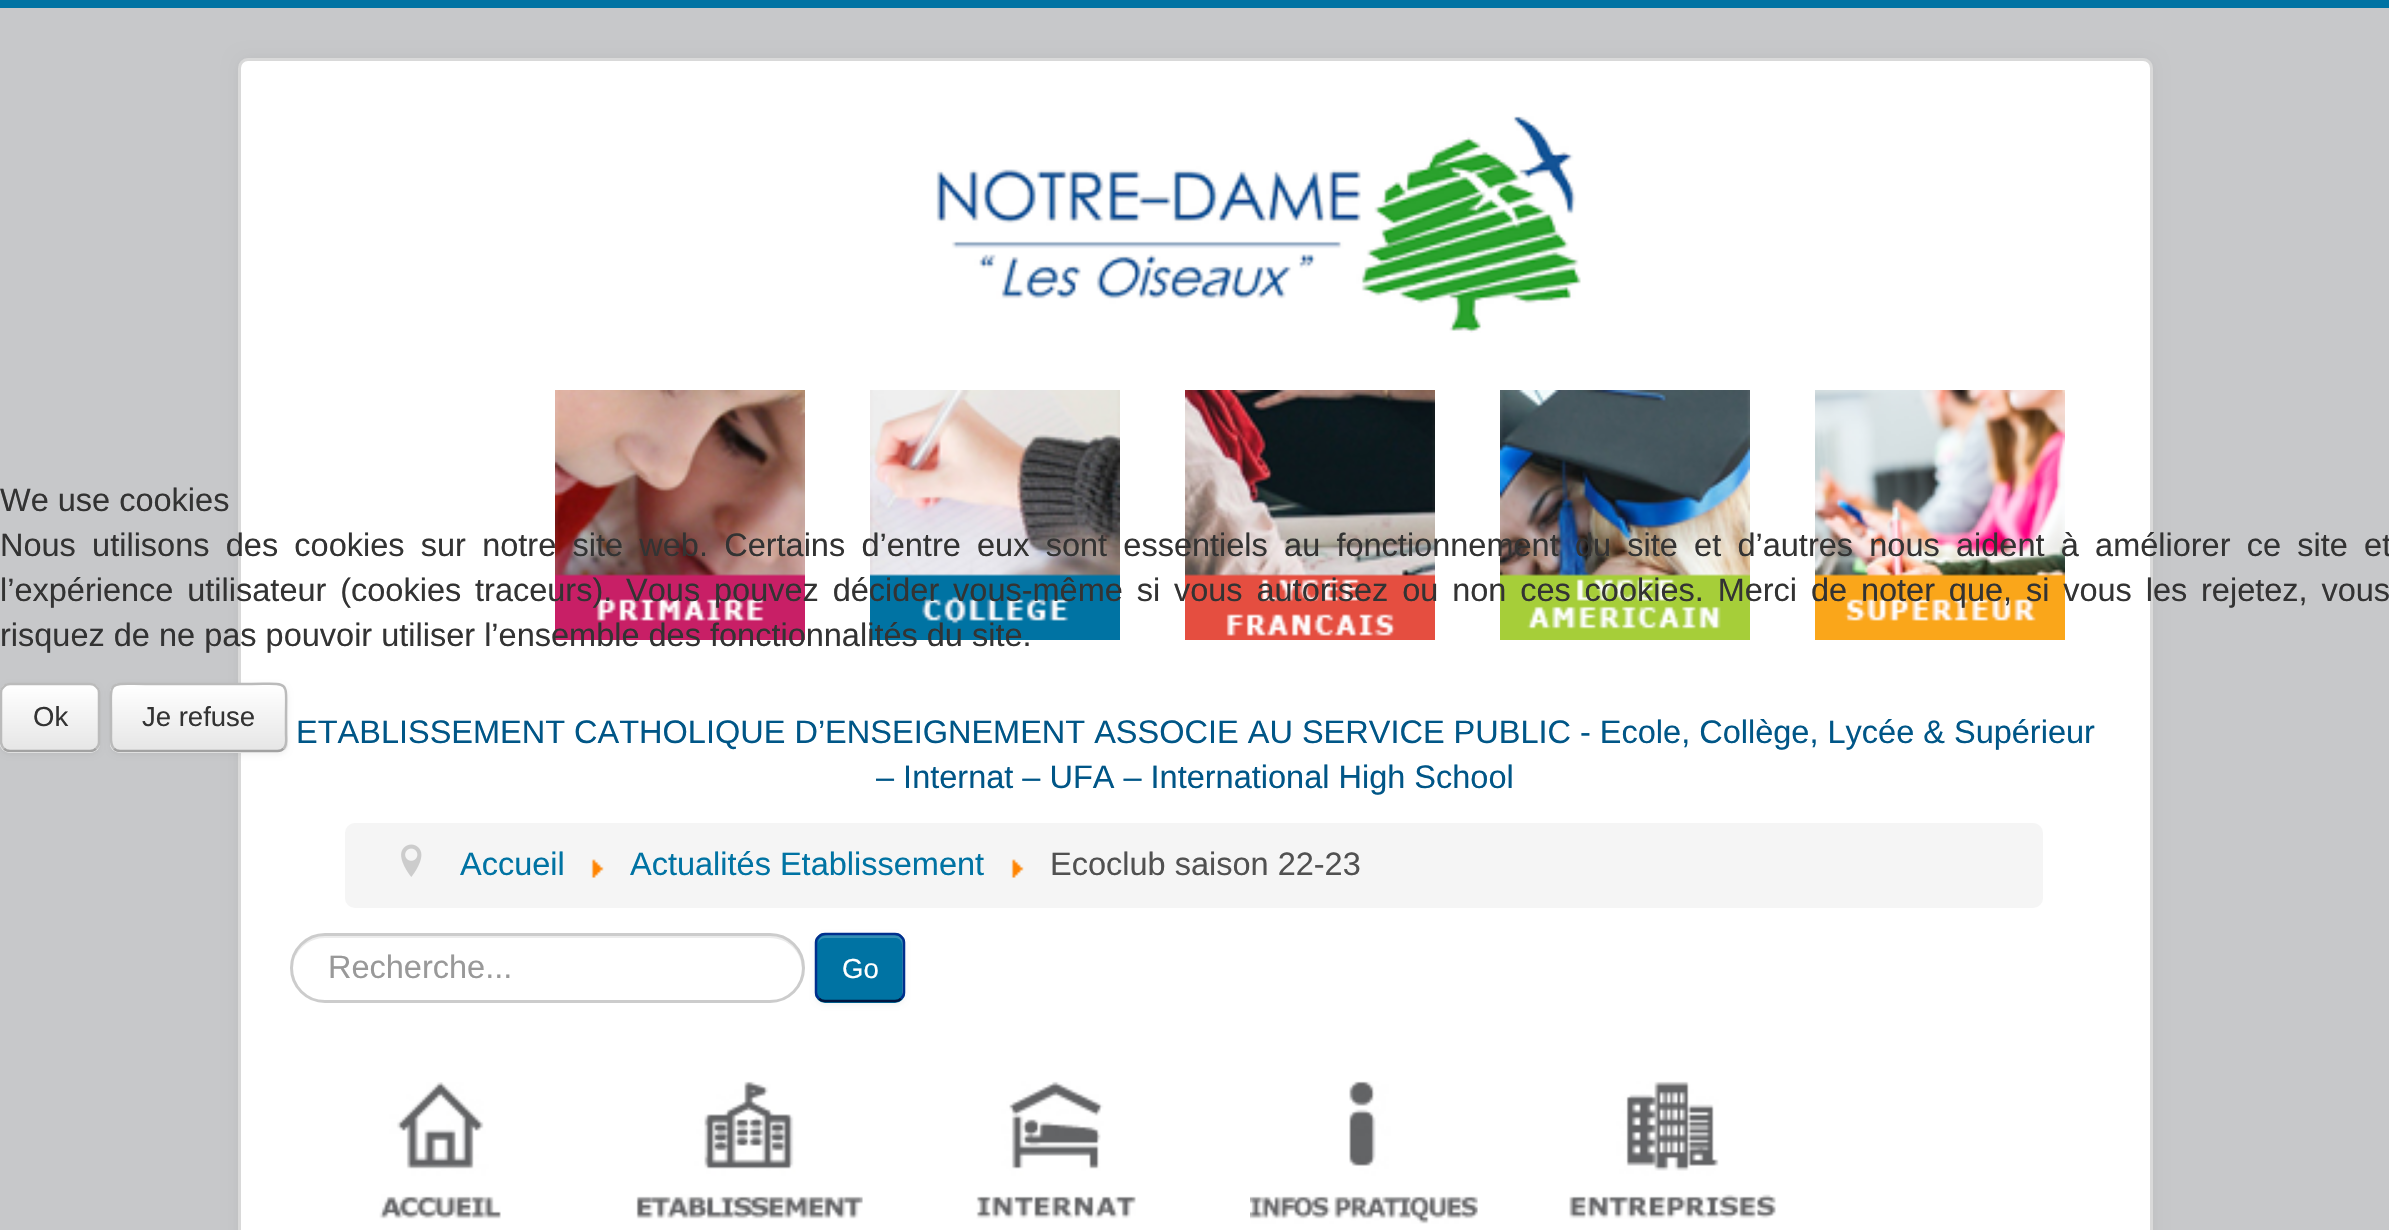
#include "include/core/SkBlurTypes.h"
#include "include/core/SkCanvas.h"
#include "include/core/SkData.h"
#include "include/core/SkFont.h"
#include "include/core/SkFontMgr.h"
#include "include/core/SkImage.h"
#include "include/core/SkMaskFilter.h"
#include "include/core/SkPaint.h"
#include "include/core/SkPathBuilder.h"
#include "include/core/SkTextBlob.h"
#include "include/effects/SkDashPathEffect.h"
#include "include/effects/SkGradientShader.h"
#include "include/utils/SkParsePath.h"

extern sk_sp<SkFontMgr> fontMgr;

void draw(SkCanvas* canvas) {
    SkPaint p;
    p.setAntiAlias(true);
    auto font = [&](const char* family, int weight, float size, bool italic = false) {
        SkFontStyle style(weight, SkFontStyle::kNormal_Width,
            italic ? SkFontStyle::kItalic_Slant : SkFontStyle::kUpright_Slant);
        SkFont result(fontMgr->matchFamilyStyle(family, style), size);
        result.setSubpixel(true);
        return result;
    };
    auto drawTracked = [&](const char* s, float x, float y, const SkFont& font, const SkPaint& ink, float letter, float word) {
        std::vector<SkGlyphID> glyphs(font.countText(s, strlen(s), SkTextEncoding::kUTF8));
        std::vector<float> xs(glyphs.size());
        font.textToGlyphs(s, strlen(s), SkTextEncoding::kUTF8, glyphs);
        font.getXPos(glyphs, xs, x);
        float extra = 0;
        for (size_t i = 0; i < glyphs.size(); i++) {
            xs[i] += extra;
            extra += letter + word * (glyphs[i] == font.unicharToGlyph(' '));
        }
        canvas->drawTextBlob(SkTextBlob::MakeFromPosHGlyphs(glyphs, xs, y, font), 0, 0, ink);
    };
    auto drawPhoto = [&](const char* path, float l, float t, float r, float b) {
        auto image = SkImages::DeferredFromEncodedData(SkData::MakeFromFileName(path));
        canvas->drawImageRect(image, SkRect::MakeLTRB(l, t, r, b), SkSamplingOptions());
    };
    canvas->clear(0xFFC7C8CA);
    p.setColor(0xFF0073A3);
    canvas->drawRect(SkRect::MakeLTRB(0, 0, 2389, 8), p);
    p.setColor(0x0D000000);
    p.setMaskFilter(SkMaskFilter::MakeBlur(kNormal_SkBlurStyle, 7.5f));
    canvas->drawRoundRect(SkRect::MakeLTRB(238, 58, 2153, 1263), 10, 10, p);
    p.setMaskFilter(nullptr);
    auto font1 = font("Liberation Sans", 400, 32.5f);
    p.setColor(0xFF333333);
    canvas->drawString("We use cookies", 0, 511, font1, p);
    p.setColor(0xFFFFFFFF);
    canvas->drawRoundRect(SkRect::MakeLTRB(238, 58, 2153, 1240), 10, 10, p);
    p.setStyle(SkPaint::kStroke_Style);
    p.setStrokeWidth(3);
    p.setColor(0x26000000);
    canvas->drawRoundRect(SkRect::MakeLTRB(239.5f, 59.5f, 2151.5f, 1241.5f), 8.5f, 8.5f, p);
    drawPhoto("media/2.png", 555, 390, 805, 640);
    drawPhoto("media/3.png", 870, 390, 1120, 640);
    drawPhoto("media/4.png", 1185, 390, 1435, 640);
    drawPhoto("media/5.png", 1500, 390, 1750, 640);
    drawPhoto("media/6.png", 1815, 390, 2065, 640);
    p.setStyle(SkPaint::kFill_Style);
    p.setColor(0xFF333333);
    drawTracked("Nous utilisons des cookies sur notre site web. Certains d’entre eux sont essentiels au fonctionnement du site et d’autres nous aident à améliorer ce site et", 0, 556, font1, p, 0, 7.2f);
    drawTracked("l’expérience utilisateur (cookies traceurs). Vous pouvez décider vous-même si vous autorisez ou non ces cookies. Merci de noter que, si vous les rejetez, vous", 0, 601, font1, p, 0, 4.8f);
    canvas->drawString("risquez de ne pas pouvoir utiliser l’ensemble des fonctionnalités du site.", 0, 646, font1, p);
    p.setColor(0x0D000000);
    p.setMaskFilter(SkMaskFilter::MakeBlur(kNormal_SkBlurStyle, 2.5f));
    canvas->drawRoundRect(SkRect::MakeLTRB(0, 685, 100, 755), 10, 10, p);
    p.setMaskFilter(nullptr);
    p.setColor(0xFFF5F5F5);
    canvas->drawRoundRect(SkRect::MakeLTRB(0, 683, 100, 753), 10, 10, p);
    canvas->save();
    canvas->clipPath(SkPathBuilder().moveTo(10, 683).lineTo(90, 683).cubicTo(95.5f, 683, 100, 687.5f, 100, 693).lineTo(100, 743).cubicTo(100, 748.5f, 95.5f, 753, 90, 753).lineTo(10, 753).cubicTo(4.5f, 753, 0, 748.5f, 0, 743).lineTo(0, 693).cubicTo(0, 687.5f, 4.5f, 683, 10, 683).close().detach(), true);
    {
        const SkColor colors[] = {0xFFFFFFFF, 0xFFE6E6E6};
        const float stops[] = {0, 1};
        const SkPoint ends[] = {{50, 685}, {50, 750}};
        p.setShader(SkGradientShader::MakeLinear(ends, colors, stops, 2, SkTileMode::kClamp));
        p.setAlpha(255);
    }
    canvas->drawRect(SkRect::MakeLTRB(0, 685, 100, 750), p);
    canvas->restore();
    p.setStyle(SkPaint::kStroke_Style);
    p.setStrokeWidth(2.5f);
    p.setShader(nullptr);
    p.setColor(0xFFA2A2A2);
    canvas->drawPath(SkPathBuilder().moveTo(96, 748.5f).cubicTo(94.5f, 750.5f, 92.5f, 751, 90, 751).lineTo(10, 751).cubicTo(7.5f, 751, 5.5f, 750.5f, 4, 748.5f).detach(), p);
    p.setColor(0xFFBBBBBB);
    canvas->drawPath(SkPathBuilder().moveTo(4, 748.5f).cubicTo(2, 747, 1.5f, 745, 1, 742.5f).lineTo(1, 692.5f).cubicTo(1, 690, 2, 688, 4, 686.5f).cubicTo(5.5f, 684.5f, 7.5f, 684, 10, 684).lineTo(90, 684).cubicTo(92.5f, 684, 94.5f, 684.5f, 96, 686.5f).cubicTo(98, 688, 99, 690, 99, 692.5f).lineTo(99, 742.5f).cubicTo(99, 745, 98, 747, 96, 748.5f).detach(), p);
    auto font2 = font("Liberation Sans", 400, 27.5f);
    p.setStyle(SkPaint::kFill_Style);
    p.setColor(0xFF333333);
    canvas->drawString("Ok", 33, 726, font2, p);
    p.setColor(0x0D000000);
    p.setMaskFilter(SkMaskFilter::MakeBlur(kNormal_SkBlurStyle, 2.5f));
    canvas->drawRoundRect(SkRect::MakeLTRB(110, 685, 288, 755), 10, 10, p);
    p.setMaskFilter(nullptr);
    p.setColor(0xFFF5F5F5);
    canvas->drawRoundRect(SkRect::MakeLTRB(110, 683, 288, 753), 10, 10, p);
    canvas->save();
    canvas->clipPath(SkPathBuilder().moveTo(120, 683).lineTo(278, 683).cubicTo(283.5f, 683, 288, 687.5f, 288, 693).lineTo(288, 743).cubicTo(288, 748.5f, 283.5f, 753, 278, 753).lineTo(120, 753).cubicTo(114.5f, 753, 110, 748.5f, 110, 743).lineTo(110, 693).cubicTo(110, 687.5f, 114.5f, 683, 120, 683).close().detach(), true);
    {
        const SkColor colors[] = {0xFFFFFFFF, 0xFFE6E6E6};
        const float stops[] = {0, 1};
        const SkPoint ends[] = {{199, 685}, {199, 750}};
        p.setShader(SkGradientShader::MakeLinear(ends, colors, stops, 2, SkTileMode::kClamp));
        p.setAlpha(255);
    }
    canvas->drawRect(SkRect::MakeLTRB(110, 685, 288, 750), p);
    canvas->restore();
    p.setStyle(SkPaint::kStroke_Style);
    p.setShader(nullptr);
    p.setColor(0xFFA2A2A2);
    canvas->drawPath(SkPathBuilder().moveTo(283.5f, 748.5f).cubicTo(282, 750.5f, 280, 751, 277.5f, 751).lineTo(120, 751).cubicTo(117.5f, 751, 115.5f, 750.5f, 114, 748.5f).detach(), p);
    p.setColor(0xFFBBBBBB);
    canvas->drawPath(SkPathBuilder().moveTo(114, 748.5f).cubicTo(110, 745, 111, 739, 111, 734).lineTo(111, 717.5f).cubicTo(111, 679, 106.5f, 684, 146, 684).lineTo(251, 684).cubicTo(291, 684, 286, 679, 286, 717.5f).lineTo(286, 734).cubicTo(286, 739, 287.5f, 745, 283.5f, 748.5f).detach(), p);
    p.setStyle(SkPaint::kFill_Style);
    p.setColor(0xFF333333);
    canvas->drawString("Je refuse", 142, 726, font2, p);
    drawPhoto("media/1.png", 936, 116, 1581, 333);
    p.setColor(0xFF005687);
    canvas->drawString("ETABLISSEMENT CATHOLIQUE D’ENSEIGNEMENT ASSOCIE AU SERVICE PUBLIC - Ecole, Collège, Lycée & Supérieur", 296, 743, font1, p);
    canvas->drawString("– Internat – UFA – International High School", 876, 788, font1, p);
    p.setColor(0xFFF5F5F5);
    canvas->drawRoundRect(SkRect::MakeLTRB(345, 823, 2043, 908), 10, 10, p);
    drawPhoto("media/7.png", 401, 844, 422, 877);
    p.setColor(0xFF0073A3);
    canvas->drawString("Accueil", 460, 875, font1, p);
    drawPhoto("media/8.png", 591, 859, 604, 878);
    canvas->drawString("Actualités Etablissement", 630, 875, font1, p);
    drawPhoto("media/8.png", 1011, 859, 1024, 878);
    p.setColor(0xFF515151);
    canvas->drawString("Ecoclub saison 22-23", 1050, 875, font1, p);
    p.setColor(0xFFECECEC);
    canvas->drawPath(SkPathBuilder().moveTo(325, 938).lineTo(770, 938).cubicTo(788, 938, 802, 952, 802, 970).cubicTo(802, 974, 801, 977, 800, 980).cubicTo(802, 976, 803, 972, 803, 968).cubicTo(803, 950, 788, 935, 770, 935).lineTo(326, 935).cubicTo(311, 935, 299, 945, 295, 958).cubicTo(300, 946, 311, 938, 325, 938).close().detach(), p);
    p.setStyle(SkPaint::kStroke_Style);
    p.setStrokeWidth(3);
    p.setColor(0xFFCCCCCC);
    canvas->drawRoundRect(SkRect::MakeLTRB(291.5f, 934.5f, 803.5f, 1001.5f), 33.5f, 33.5f, p);
    p.setStyle(SkPaint::kFill_Style);
    p.setColor(0xFF999999);
    canvas->drawString("Recherche...", 328, 978, font1, p);
    p.setColor(0x0D000000);
    p.setMaskFilter(SkMaskFilter::MakeBlur(kNormal_SkBlurStyle, 2.5f));
    canvas->drawRoundRect(SkRect::MakeLTRB(815, 935, 905, 1005), 10, 10, p);
    p.setMaskFilter(nullptr);
    p.setColor(0xFF0073A3);
    canvas->drawRoundRect(SkRect::MakeLTRB(815, 933, 905, 1003), 10, 10, p);
    p.setColor(0xFF338FB5);
    canvas->drawPath(SkPathBuilder().moveTo(825, 938).lineTo(896, 938).cubicTo(904, 939, 902, 948, 902, 953).lineTo(902, 996).cubicTo(904, 993, 903, 987, 903, 984).lineTo(903, 968).cubicTo(903, 931, 908, 935, 872, 935).lineTo(838, 935).cubicTo(828, 935, 818, 933, 818, 945).cubicTo(818, 941, 821, 938, 825, 938).close().detach(), p);
    p.setStyle(SkPaint::kStroke_Style);
    p.setStrokeWidth(2.5f);
    p.setColor(0xFF001641);
    canvas->drawPath(SkPathBuilder().moveTo(901, 998.5f).cubicTo(899.5f, 1000.5f, 897.5f, 1001, 895, 1001).lineTo(825, 1001).cubicTo(822.5f, 1001, 820.5f, 1000.5f, 819, 998.5f).detach(), p);
    p.setColor(0xFF002F8D);
    canvas->drawPath(SkPathBuilder().moveTo(819, 998.5f).cubicTo(817, 997, 816, 995, 816, 992.5f).lineTo(816, 942.5f).cubicTo(816, 940, 817, 938, 819, 936.5f).cubicTo(820.5f, 934.5f, 822.5f, 934, 825, 934).lineTo(895, 934).cubicTo(897.5f, 934, 899.5f, 934.5f, 901, 936.5f).cubicTo(903, 938, 904, 940, 904, 942.5f).lineTo(904, 992.5f).cubicTo(904, 995, 903, 997, 901, 998.5f).detach(), p);
    p.setStyle(SkPaint::kFill_Style);
    p.setColor(0xFFFFFFFF);
    canvas->drawString("Go", 842, 978, font2, p);
    drawPhoto("media/9.png", 379, 1082, 501, 1219);
    drawPhoto("media/10.png", 636, 1081, 863, 1219);
    drawPhoto("media/11.png", 976, 1081, 1136, 1219);
    drawPhoto("media/12.png", 1250, 1081, 1478, 1224);
    drawPhoto("media/13.png", 1569, 1081, 1776, 1219);
}
